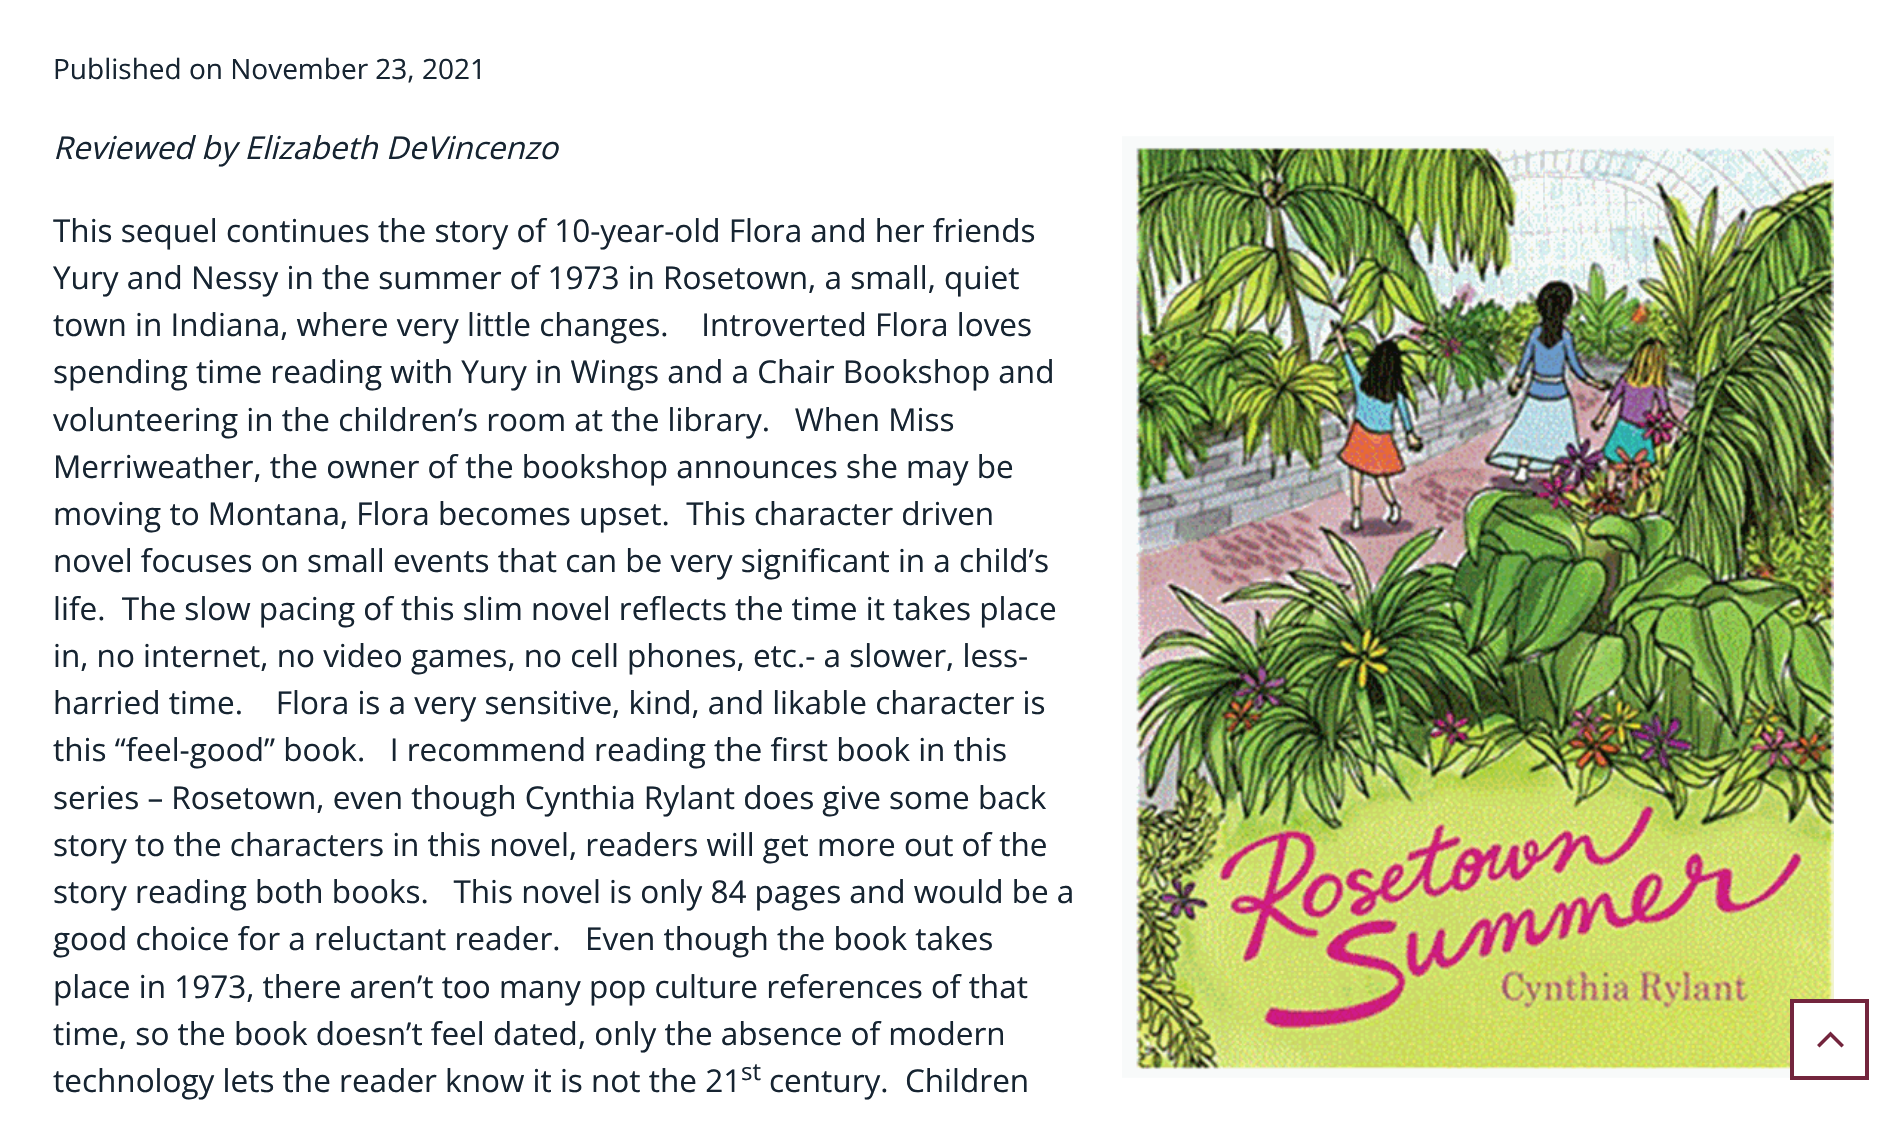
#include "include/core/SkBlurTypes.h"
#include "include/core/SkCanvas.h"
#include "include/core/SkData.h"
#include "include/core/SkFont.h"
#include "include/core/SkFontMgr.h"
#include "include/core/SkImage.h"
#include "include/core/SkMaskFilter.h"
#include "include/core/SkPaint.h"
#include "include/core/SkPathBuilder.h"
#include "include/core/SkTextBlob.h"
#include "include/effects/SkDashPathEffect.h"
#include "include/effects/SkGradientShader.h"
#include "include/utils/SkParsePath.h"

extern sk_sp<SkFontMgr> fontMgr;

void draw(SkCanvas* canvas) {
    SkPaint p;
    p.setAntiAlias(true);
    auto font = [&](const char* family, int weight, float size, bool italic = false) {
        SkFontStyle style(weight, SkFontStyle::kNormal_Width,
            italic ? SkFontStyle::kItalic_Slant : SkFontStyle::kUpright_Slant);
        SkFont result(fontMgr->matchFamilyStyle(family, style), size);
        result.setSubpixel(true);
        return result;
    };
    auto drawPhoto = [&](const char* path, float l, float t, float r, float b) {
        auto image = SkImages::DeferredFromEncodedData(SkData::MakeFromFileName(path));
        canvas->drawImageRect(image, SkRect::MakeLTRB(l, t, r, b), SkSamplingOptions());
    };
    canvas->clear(0xFFFFFFFF);
    auto font1 = font("Open Sans", 400, 28);
    p.setColor(0xFF162431);
    canvas->drawString("Published on November 23, 2021", 53, 79, font1, p);
    auto font2 = font("Open Sans", 400, 31.5f, true);
    canvas->drawString("Reviewed by Elizabeth DeVincenzo", 53, 159, font2, p);
    drawPhoto("media/1.png", 1122, 136, 1834, 1078);
    auto font3 = font("Open Sans", 400, 31.5f);
    {
        const struct { const char* s; float x, y; } items[] = {
            {"This sequel continues the story of 10-year-old Flora and her friends", 53, 242},
            {"Yury and Nessy in the summer of 1973 in Rosetown, a small, quiet", 53, 289},
            {"town in Indiana, where very little changes.    Introverted Flora loves", 53, 336},
            {"spending time reading with Yury in Wings and a Chair Bookshop and", 53, 383},
            {"volunteering in the children’s room at the library.   When Miss", 53, 431},
            {"Merriweather, the owner of the bookshop announces she may be", 53, 478},
            {"moving to Montana, Flora becomes upset.  This character driven", 53, 525},
            {"novel focuses on small events that can be very significant in a child’s", 53, 572},
            {"life.  The slow pacing of this slim novel reflects the time it takes place", 53, 620},
            {"in, no internet, no video games, no cell phones, etc.- a slower, less-", 53, 667},
            {"harried time.    Flora is a very sensitive, kind, and likable character is", 53, 714},
            {"this “feel-good” book.   I recommend reading the first book in this", 53, 761},
            {"series – Rosetown, even though Cynthia Rylant does give some back", 53, 809},
            {"story to the characters in this novel, readers will get more out of the", 53, 856},
            {"story reading both books.   This novel is only 84 pages and would be a", 53, 903},
            {"good choice for a reluctant reader.   Even though the book takes", 53, 950},
            {"place in 1973, there aren’t too many pop culture references of that", 53, 998},
            {"time, so the book doesn’t feel dated, only the absence of modern", 53, 1045},
            {"technology lets the reader know it is not the 21", 53, 1092},
        };
        for (auto [s, x, y] : items) {
            canvas->drawString(s, x, y, font3, p);
        }
    }
    auto font4 = font("Open Sans", 400, 24);
    canvas->drawString("st", 741, 1080, font4, p);
    canvas->drawString("century.  Children", 769, 1092, font3, p);
    p.setColor(0xFFFFFFFF);
    canvas->drawRect(SkRect::MakeLTRB(1794, 1003, 1834, 1076), p);
    p.setStyle(SkPaint::kStroke_Style);
    p.setStrokeWidth(4);
    p.setColor(0xFF73253D);
    canvas->drawRect(SkRect::MakeLTRB(1792, 1001, 1867, 1078), p);
    p.setStyle(SkPaint::kFill_Style);
    canvas->drawPath(SkPathBuilder().moveTo(1841.5f, 1047.5f).lineTo(1830.5f, 1036.5f).lineTo(1819.5f, 1047.5f).lineTo(1817, 1045).lineTo(1830.5f, 1031.5f).lineTo(1844, 1045).close().detach(), p);
}
